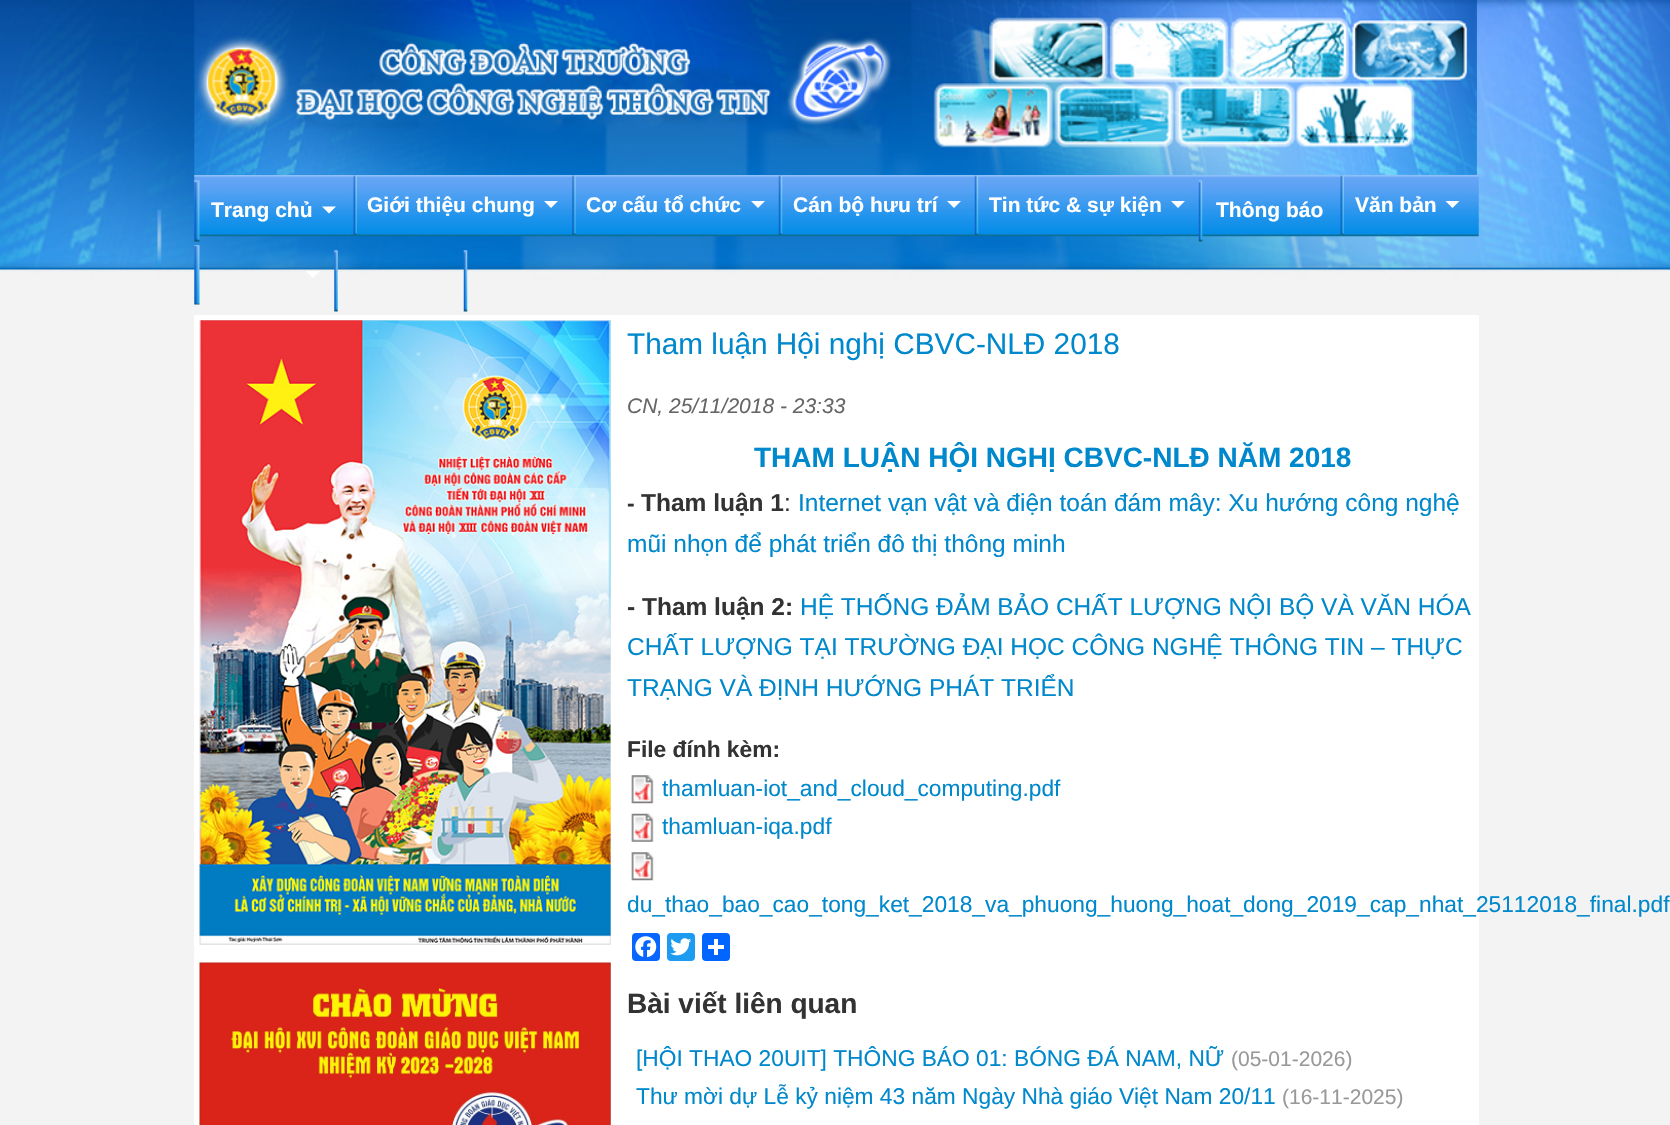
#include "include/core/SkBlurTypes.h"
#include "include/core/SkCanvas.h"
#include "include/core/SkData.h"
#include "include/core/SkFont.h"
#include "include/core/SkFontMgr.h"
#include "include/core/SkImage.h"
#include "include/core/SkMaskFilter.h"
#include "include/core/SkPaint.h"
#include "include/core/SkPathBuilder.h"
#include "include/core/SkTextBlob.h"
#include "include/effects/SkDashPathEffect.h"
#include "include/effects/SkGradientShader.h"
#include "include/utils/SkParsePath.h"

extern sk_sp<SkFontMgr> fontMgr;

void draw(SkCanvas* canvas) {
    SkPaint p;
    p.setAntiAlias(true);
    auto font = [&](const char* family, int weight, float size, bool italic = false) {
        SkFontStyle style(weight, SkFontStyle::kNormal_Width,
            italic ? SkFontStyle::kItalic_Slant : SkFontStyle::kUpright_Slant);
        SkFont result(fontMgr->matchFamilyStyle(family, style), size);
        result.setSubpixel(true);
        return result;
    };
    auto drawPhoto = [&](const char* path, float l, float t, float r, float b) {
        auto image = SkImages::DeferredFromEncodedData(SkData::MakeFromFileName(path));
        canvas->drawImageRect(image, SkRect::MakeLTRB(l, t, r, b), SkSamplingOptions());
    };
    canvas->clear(0xFFFFFFFF);
    drawPhoto("media/1.png", 0, 0, 1670, 1125);
    drawPhoto("media/2.png", 194, 0, 1477, 175);
    drawPhoto("media/3.png", 194, 175, 1479, 237);
    drawPhoto("media/4.png", 194, 180, 200, 242);
    auto font1 = font("Liberation Sans", 700, 21);
    p.setColor(0xFFFFFFFF);
    canvas->drawString("Trang chủ", 211, 217, font1, p);
    canvas->drawPath(SkPathBuilder().moveTo(322, 206.5f).lineTo(336, 206.5f).lineTo(329, 213.5f).close().detach(), p);
    drawPhoto("media/5.png", 353, 175, 357, 235);
    canvas->drawString("Giới thiệu chung", 367, 212, font1, p);
    canvas->drawPath(SkPathBuilder().moveTo(544, 201).lineTo(558, 201).lineTo(551, 208).close().detach(), p);
    drawPhoto("media/6.png", 572, 175, 576, 235);
    canvas->drawString("Cơ cấu tổ chức", 586, 212, font1, p);
    canvas->drawPath(SkPathBuilder().moveTo(751, 201).lineTo(765, 201).lineTo(758, 208).close().detach(), p);
    drawPhoto("media/7.png", 778, 175, 783, 235);
    canvas->drawString("Cán bộ hưu trí", 793, 212, font1, p);
    canvas->drawPath(SkPathBuilder().moveTo(947, 201).lineTo(961, 201).lineTo(954, 208).close().detach(), p);
    drawPhoto("media/8.png", 974, 175, 979, 235);
    canvas->drawString("Tin tức & sự kiện", 989, 212, font1, p);
    canvas->drawPath(SkPathBuilder().moveTo(1171, 201).lineTo(1185, 201).lineTo(1178, 208).close().detach(), p);
    drawPhoto("media/9.png", 1198, 180, 1203, 242);
    canvas->drawString("Thông báo", 1216, 217, font1, p);
    drawPhoto("media/5.png", 1340, 175, 1344, 235);
    canvas->drawString("Văn bản", 1355, 212, font1, p);
    canvas->drawPath(SkPathBuilder().moveTo(1445.5f, 201).lineTo(1459.5f, 201).lineTo(1452.5f, 208).close().detach(), p);
    drawPhoto("media/10.png", 194, 245, 200, 305);
    canvas->drawPath(SkPathBuilder().moveTo(306, 271).lineTo(320, 271).lineTo(313, 278).close().detach(), p);
    drawPhoto("media/11.png", 334, 250, 338, 312);
    drawPhoto("media/12.png", 463, 250, 468, 312);
    canvas->drawRect(SkRect::MakeLTRB(194, 315, 1479, 1125), p);
    drawPhoto("media/13.png", 199, 320, 611, 945);
    drawPhoto("media/14.png", 199, 962, 611, 1125);
    auto font2 = font("Liberation Sans", 400, 29.75f);
    p.setColor(0xFF0088CC);
    canvas->drawString("Tham luận Hội nghị CBVC-NLĐ 2018", 627, 354, font2, p);
    auto font3 = font("Liberation Sans", 400, 21, true);
    p.setColor(0xFF666666);
    canvas->drawString("CN, 25/11/2018 - 23:33", 627, 413, font3, p);
    auto font4 = font("Liberation Sans", 700, 28);
    p.setColor(0xFF0088CC);
    canvas->drawString("THAM LUẬN HỘI NGHỊ CBVC-NLĐ NĂM 2018", 754, 467, font4, p);
    auto font5 = font("Liberation Sans", 700, 22.75f);
    p.setColor(0xFF333333);
    canvas->drawString("-", 627, 511, font5, p);
    auto font6 = font("Liberation Sans", 700, 24.5f);
    canvas->drawString("Tham luận 1", 641, 511, font6, p);
    auto font7 = font("Liberation Sans", 400, 24.5f);
    canvas->drawString(":", 784, 511, font7, p);
    p.setColor(0xFF0088CC);
    canvas->drawString("Internet vạn vật và điện toán đám mây: Xu hướng công nghệ", 798, 511, font7, p);
    canvas->drawString("mũi nhọn để phát triển đô thị thông minh", 627, 552, font7, p);
    p.setColor(0xFF333333);
    canvas->drawString("- Tham luận 2:", 627, 615, font6, p);
    p.setColor(0xFF0088CC);
    {
        const struct { const char* s; float x, y; } items[] = {
            {"HỆ THỐNG ĐẢM BẢO CHẤT LƯỢNG NỘI BỘ VÀ VĂN HÓA", 800, 615},
            {"CHẤT LƯỢNG TẠI TRƯỜNG ĐẠI HỌC CÔNG NGHỆ THÔNG TIN – THỰC", 627, 655},
            {"TRẠNG VÀ ĐỊNH HƯỚNG PHÁT TRIỂN", 627, 696},
        };
        for (auto [s, x, y] : items) {
            canvas->drawString(s, x, y, font7, p);
        }
    }
    p.setColor(0xFF333333);
    canvas->drawString("File đính kèm:", 627, 757, font5, p);
    drawPhoto("media/15.png", 631, 775, 654, 804);
    auto font8 = font("Liberation Sans", 400, 22.75f);
    p.setColor(0xFF0088CC);
    canvas->drawString("thamluan-iot_and_cloud_computing.pdf", 662, 796, font8, p);
    drawPhoto("media/16.png", 631, 813, 654, 842);
    canvas->drawString("thamluan-iqa.pdf", 662, 834, font8, p);
    drawPhoto("media/15.png", 631, 852, 654, 881);
    canvas->drawString("du_thao_bao_cao_tong_ket_2018_va_phuong_huong_hoat_dong_2019_cap_nhat_25112018_final.pdf", 627, 912, font8, p);
    p.setColor(0xFF0866FF);
    canvas->drawRoundRect(SkRect::MakeLTRB(632, 933, 660, 961), 4, 4, p);
    drawPhoto("media/17.png", 635, 936, 657, 958);
    p.setColor(0xFF1D9BF0);
    canvas->drawRoundRect(SkRect::MakeLTRB(667, 933, 695, 961), 4, 4, p);
    drawPhoto("media/18.png", 670, 938, 692, 956);
    p.setColor(0xFF0166FF);
    canvas->drawRoundRect(SkRect::MakeLTRB(702, 933, 730, 961), 4, 4, p);
    p.setColor(0xFFFFFFFF);
    canvas->drawRect(SkRect::MakeLTRB(714, 939, 718, 955), p);
    canvas->drawRect(SkRect::MakeLTRB(708, 945, 724, 949), p);
    p.setColor(0xFF333333);
    canvas->drawString("Bài viết liên quan", 627, 1013, font4, p);
    p.setColor(0xFF0088CC);
    canvas->drawString("[HỘI THAO 20UIT] THÔNG BÁO 01: BÓNG ĐÁ NAM, NỮ", 636, 1066, font8, p);
    auto font9 = font("Liberation Sans", 400, 21);
    p.setColor(0xFF999999);
    canvas->drawString("(05-01-2026)", 1231, 1066, font9, p);
    p.setColor(0xFF0088CC);
    canvas->drawString("Thư mời dự Lễ kỷ niệm 43 năm Ngày Nhà giáo Việt Nam 20/11", 636, 1104, font8, p);
    p.setColor(0xFF999999);
    canvas->drawString("(16-11-2025)", 1282, 1104, font9, p);
}
